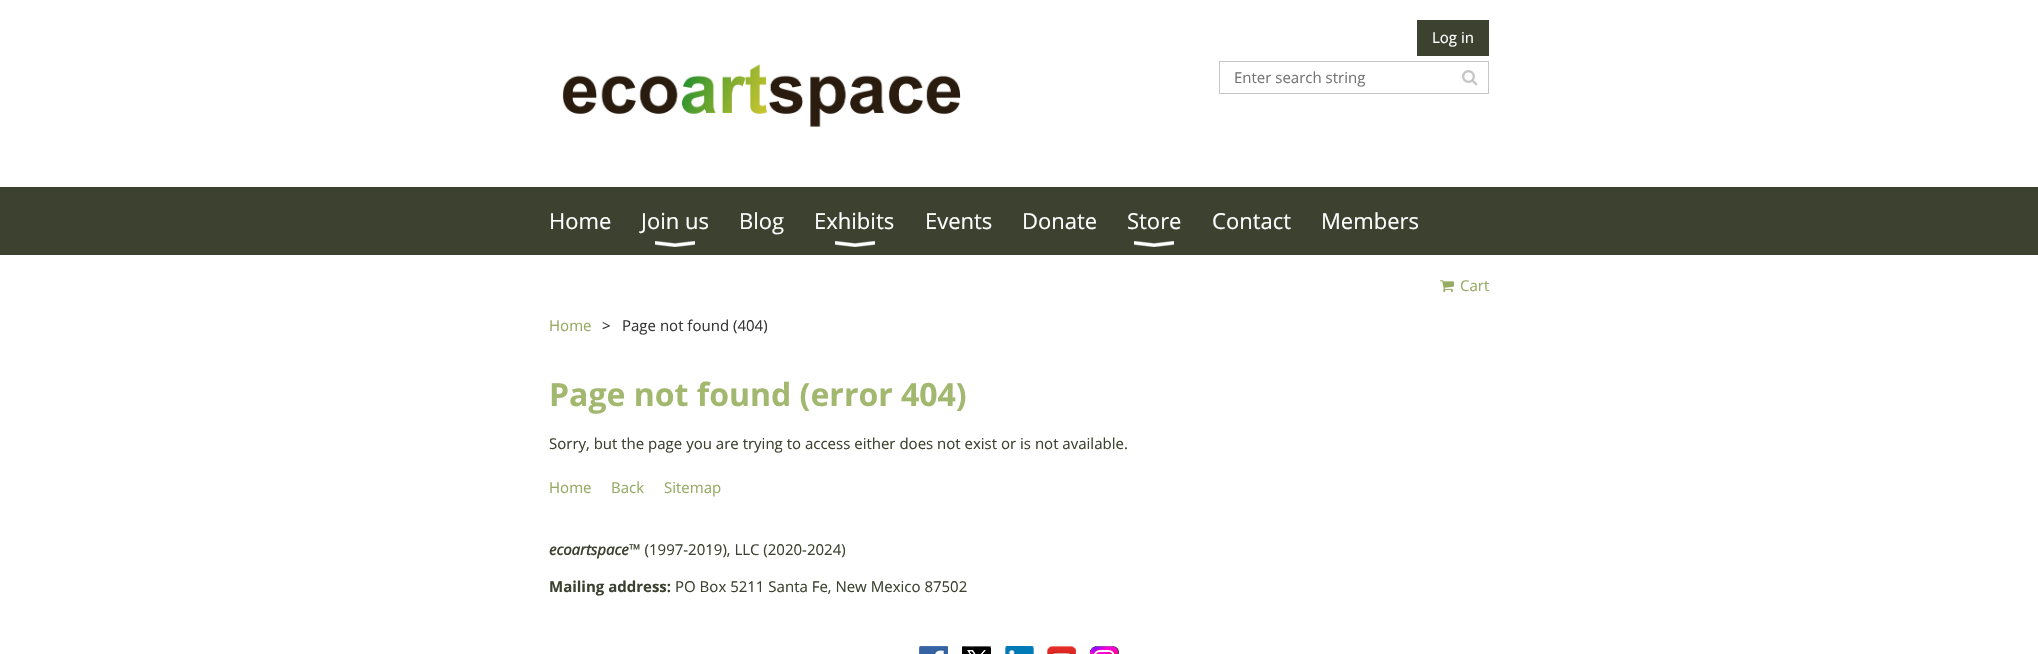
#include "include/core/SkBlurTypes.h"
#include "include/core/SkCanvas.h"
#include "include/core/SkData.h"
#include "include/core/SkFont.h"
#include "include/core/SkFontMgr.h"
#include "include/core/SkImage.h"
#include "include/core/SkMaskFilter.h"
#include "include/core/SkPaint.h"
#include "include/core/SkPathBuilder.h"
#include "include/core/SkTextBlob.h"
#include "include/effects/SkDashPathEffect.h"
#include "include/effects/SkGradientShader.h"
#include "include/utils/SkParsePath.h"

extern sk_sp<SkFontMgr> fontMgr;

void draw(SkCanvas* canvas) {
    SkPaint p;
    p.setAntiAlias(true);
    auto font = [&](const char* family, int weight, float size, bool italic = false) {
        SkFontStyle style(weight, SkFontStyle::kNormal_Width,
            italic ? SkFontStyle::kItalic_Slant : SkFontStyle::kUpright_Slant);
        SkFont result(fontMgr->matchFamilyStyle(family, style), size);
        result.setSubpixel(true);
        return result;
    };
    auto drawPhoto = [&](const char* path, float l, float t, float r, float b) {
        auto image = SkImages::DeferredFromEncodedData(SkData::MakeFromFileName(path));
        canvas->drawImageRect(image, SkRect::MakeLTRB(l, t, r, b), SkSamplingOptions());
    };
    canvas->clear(0xFFFFFFFF);
    drawPhoto("media/1.png", 562, 64, 961, 127);
    p.setColor(0xFF3D4230);
    canvas->drawRect(SkRect::MakeLTRB(1417, 20, 1489, 56), p);
    auto font1 = font("Open Sans", 400, 15);
    p.setColor(0xFFFFFFFF);
    canvas->drawString("Log in", 1432, 43, font1, p);
    p.setStyle(SkPaint::kStroke_Style);
    p.setStrokeWidth(1);
    p.setColor(0xFFC6C6C6);
    canvas->drawRect(SkRect::MakeLTRB(1219.5f, 61.5f, 1488.5f, 93.5f), p);
    p.setStyle(SkPaint::kFill_Style);
    p.setColor(0xFF757575);
    canvas->drawString("Enter search string", 1234, 83, font1, p);
    drawPhoto("media/2.png", 1462, 70, 1478, 86);
    p.setColor(0xFF3D4230);
    canvas->drawRect(SkRect::MakeLTRB(0, 187, 2038, 255), p);
    auto font2 = font("Open Sans", 400, 22);
    p.setColor(0xFFFFFFFF);
    canvas->drawString("Home", 549, 229, font2, p);
    canvas->drawString("Join us", 641, 229, font2, p);
    drawPhoto("media/3.png", 655, 241, 695, 247);
    canvas->drawString("Blog", 739, 229, font2, p);
    canvas->drawString("Exhibits", 814, 229, font2, p);
    drawPhoto("media/3.png", 835, 241, 875, 247);
    {
        const struct { const char* s; float x, y; } items[] = {
            {"Events", 925, 229},
            {"Donate", 1022, 229},
            {"Store", 1127, 229},
        };
        for (auto [s, x, y] : items) {
            canvas->drawString(s, x, y, font2, p);
        }
    }
    drawPhoto("media/3.png", 1134, 241, 1174, 247);
    canvas->drawString("Contact", 1212, 229, font2, p);
    canvas->drawString("Members", 1321, 229, font2, p);
    drawPhoto("media/4.png", 1440, 280, 1454, 292);
    p.setColor(0xFF95AB63);
    canvas->drawString("Cart", 1460, 291, font1, p);
    canvas->drawString("Home", 549, 331, font1, p);
    p.setColor(0xFF373737);
    canvas->drawString(">", 602, 331, font1, p);
    canvas->drawString("Page not found (404)", 622, 331, font1, p);
    auto font3 = font("Open Sans", 700, 32);
    p.setColor(0xFFA2B86F);
    canvas->drawString("Page not found (error 404)", 549, 406, font3, p);
    p.setColor(0xFF3D4230);
    canvas->drawString("Sorry, but the page you are trying to access either does not exist or is not available.", 549, 449, font1, p);
    p.setColor(0xFF95AB63);
    {
        const struct { const char* s; float x, y; } items[] = {
            {"Home", 549, 493},
            {"Back", 611, 493},
            {"Sitemap", 664, 493},
        };
        for (auto [s, x, y] : items) {
            canvas->drawString(s, x, y, font1, p);
        }
    }
    auto font4 = font("Open Sans", 700, 15, true);
    p.setColor(0xFF3D4230);
    canvas->drawString("ecoartspace", 549, 555, font4, p);
    canvas->drawString("™ (1997-2019), LLC (2020-2024)", 629, 555, font1, p);
    auto font5 = font("Open Sans", 700, 15);
    canvas->drawString("Mailing address:", 549, 592, font5, p);
    canvas->drawString("PO Box 5211 Santa Fe, New Mexico 87502", 675, 592, font1, p);
    drawPhoto("media/5.png", 919, 646, 948, 654);
    drawPhoto("media/6.png", 962, 646, 991, 654);
    drawPhoto("media/7.png", 1005, 646, 1034, 654);
    drawPhoto("media/8.png", 1047, 646, 1076, 654);
    drawPhoto("media/9.png", 1090, 646, 1119, 654);
}
